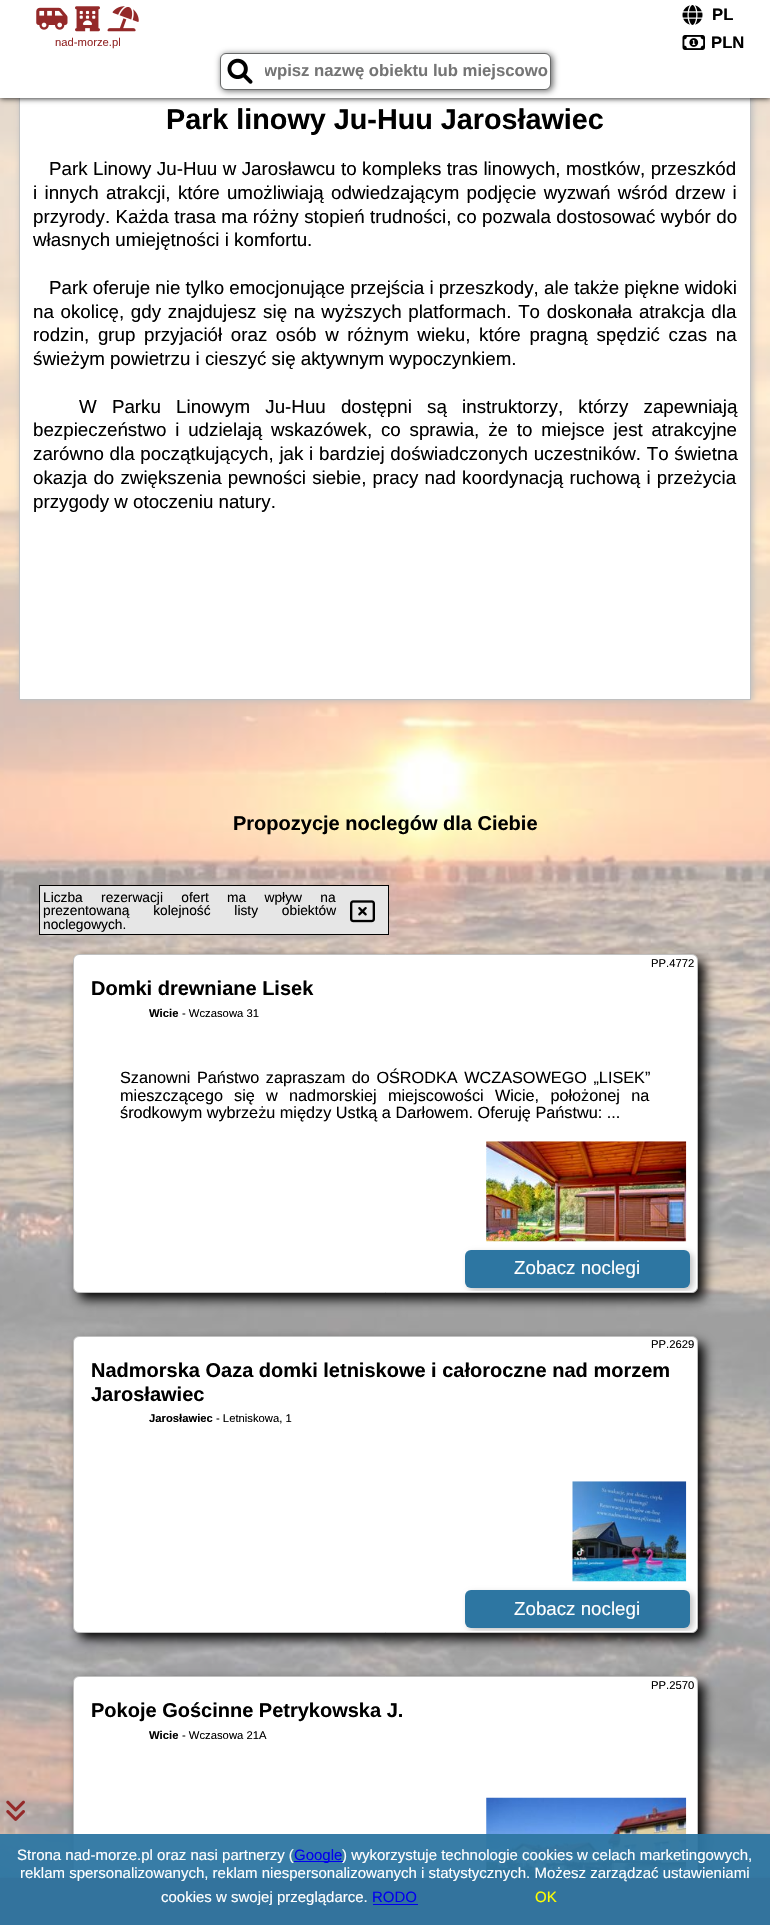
#include "include/core/SkBlurTypes.h"
#include "include/core/SkCanvas.h"
#include "include/core/SkData.h"
#include "include/core/SkFont.h"
#include "include/core/SkFontMgr.h"
#include "include/core/SkImage.h"
#include "include/core/SkMaskFilter.h"
#include "include/core/SkPaint.h"
#include "include/core/SkPathBuilder.h"
#include "include/core/SkTextBlob.h"
#include "include/effects/SkDashPathEffect.h"
#include "include/effects/SkGradientShader.h"
#include "include/utils/SkParsePath.h"

extern sk_sp<SkFontMgr> fontMgr;

void draw(SkCanvas* canvas) {
    SkPaint p;
    p.setAntiAlias(true);
    auto font = [&](const char* family, int weight, float size, bool italic = false) {
        SkFontStyle style(weight, SkFontStyle::kNormal_Width,
            italic ? SkFontStyle::kItalic_Slant : SkFontStyle::kUpright_Slant);
        SkFont result(fontMgr->matchFamilyStyle(family, style), size);
        result.setSubpixel(true);
        return result;
    };
    auto drawTracked = [&](const char* s, float x, float y, const SkFont& font, const SkPaint& ink, float letter, float word) {
        std::vector<SkGlyphID> glyphs(font.countText(s, strlen(s), SkTextEncoding::kUTF8));
        std::vector<float> xs(glyphs.size());
        font.textToGlyphs(s, strlen(s), SkTextEncoding::kUTF8, glyphs);
        font.getXPos(glyphs, xs, x);
        float extra = 0;
        for (size_t i = 0; i < glyphs.size(); i++) {
            xs[i] += extra;
            extra += letter + word * (glyphs[i] == font.unicharToGlyph(' '));
        }
        canvas->drawTextBlob(SkTextBlob::MakeFromPosHGlyphs(glyphs, xs, y, font), 0, 0, ink);
    };
    auto drawPhoto = [&](const char* path, float l, float t, float r, float b) {
        auto image = SkImages::DeferredFromEncodedData(SkData::MakeFromFileName(path));
        canvas->drawImageRect(image, SkRect::MakeLTRB(l, t, r, b), SkSamplingOptions());
    };
    canvas->clear(0xFFFFFFFF);
    drawPhoto("media/1.png", 0, 98, 770, 1878);
    p.setColor(0xFFC0C0C0);
    p.setMaskFilter(SkMaskFilter::MakeBlur(kNormal_SkBlurStyle, 3));
    canvas->drawRect(SkRect::MakeLTRB(20, 76, 753, 701), p);
    p.setMaskFilter(nullptr);
    p.setColor(0xFFFFFFFF);
    canvas->drawRect(SkRect::MakeLTRB(20, 98, 750, 699), p);
    p.setStyle(SkPaint::kStroke_Style);
    p.setStrokeWidth(1);
    p.setColor(0xFFC0C0C0);
    canvas->drawRect(SkRect::MakeLTRB(19.5f, 75.5f, 750.5f, 699.5f), p);
    p.setStyle(SkPaint::kFill_Style);
    p.setColor(0xFF000000);
    p.setMaskFilter(SkMaskFilter::MakeBlur(kNormal_SkBlurStyle, 3));
    canvas->drawRect(SkRect::MakeLTRB(0, 0, 770, 98), p);
    p.setMaskFilter(nullptr);
    p.setColor(0xFFFFFFFF);
    canvas->drawRect(SkRect::MakeLTRB(0, 0, 770, 98), p);
    drawPhoto("media/2.png", 682, 5, 703, 25);
    auto font1 = font("Liberation Sans", 700, 16.7f);
    p.setColor(0xFF000000);
    canvas->drawString("PL", 712, 20, font1, p);
    drawPhoto("media/3.png", 36, 7, 68, 30);
    drawPhoto("media/4.png", 75, 6, 100, 32);
    drawPhoto("media/5.png", 107, 6, 139, 32);
    auto font2 = font("Liberation Sans", 400, 11.25f);
    p.setColor(0xFF942929);
    canvas->drawString("nad-morze.pl", 55, 46, font2, p);
    drawPhoto("media/6.png", 682, 35, 705, 50);
    p.setColor(0xFF000000);
    canvas->drawString("PLN", 711, 48, font1, p);
    p.setColor(0xFF676868);
    p.setMaskFilter(SkMaskFilter::MakeBlur(kNormal_SkBlurStyle, 3));
    canvas->drawRoundRect(SkRect::MakeLTRB(221, 54, 553, 91), 6, 6, p);
    p.setMaskFilter(nullptr);
    p.setColor(0xFFFFFFFF);
    canvas->drawRoundRect(SkRect::MakeLTRB(220.5f, 53.5f, 550.5f, 89.5f), 5.5f, 5.5f, p);
    p.setStyle(SkPaint::kStroke_Style);
    p.setColor(0xFF676868);
    canvas->drawRoundRect(SkRect::MakeLTRB(220.5f, 53.5f, 550.5f, 89.5f), 5.5f, 5.5f, p);
    drawPhoto("media/7.png", 227, 58, 253, 84);
    canvas->save();
    canvas->clipRect(SkRect::MakeLTRB(265, 61, 549, 80));
    p.setStyle(SkPaint::kFill_Style);
    p.setColor(0xFF757575);
    canvas->drawString("wpisz nazwę obiektu lub miejscowo", 264, 76, font1, p);
    canvas->restore();
    auto font3 = font("Liberation Sans", 700, 28.75f);
    p.setColor(0xFF000000);
    canvas->drawString("Park linowy Ju-Huu Jarosławiec", 166, 129, font3, p);
    auto font4 = font("Liberation Sans", 400, 18.75f);
    drawTracked("Park Linowy Ju-Huu w Jarosławcu to kompleks tras linowych, mostków, przeszkód", 49, 175, font4, p, 0, 0.25f);
    drawTracked("i innych atrakcji, które umożliwiają odwiedzającym podjęcie wyzwań wśród drzew i", 33, 199, font4, p, 0, 2.1f);
    drawTracked("przyrody. Każda trasa ma różny stopień trudności, co pozwala dostosować wybór do", 33, 223, font4, p, 0, 0.25f);
    canvas->drawString("własnych umiejętności i komfortu.", 33, 246, font4, p);
    canvas->drawString("Park oferuje nie tylko emocjonujące przejścia i przeszkody, ale także piękne widoki", 49, 294, font4, p);
    drawTracked("na okolicę, gdy znajdujesz się na wyższych platformach. To doskonała atrakcja dla", 33, 318, font4, p, 0, 1.5f);
    drawTracked("rodzin, grup przyjaciół oraz osób w różnym wieku, które pragną spędzić czas na", 33, 341, font4, p, 0, 3.4f);
    canvas->drawString("świeżym powietrzu i cieszyć się aktywnym wypoczynkiem.", 33, 365, font4, p);
    drawTracked("W Parku Linowym Ju-Huu dostępni są instruktorzy, którzy zapewniają", 79, 413, font4, p, 0, 10);
    drawTracked("bezpieczeństwo i udzielają wskazówek, co sprawia, że to miejsce jest atrakcyjne", 33, 436, font4, p, 0, 3.6f);
    drawTracked("zarówno dla początkujących, jak i bardziej doświadczonych uczestników. To świetna", 33, 460, font4, p, 0, 0.5f);
    drawTracked("okazja do zwiększenia pewności siebie, pracy nad koordynacją ruchową i przeżycia", 33, 484, font4, p, 0, 1);
    canvas->drawString("przygody w otoczeniu natury.", 33, 508, font4, p);
    auto font5 = font("Liberation Sans", 700, 20);
    canvas->drawString("Propozycje noclegów dla Ciebie", 233, 830, font5, p);
    p.setColor(0xFFE6E6E6);
    canvas->drawRect(SkRect::MakeLTRB(39.5f, 885.5f, 388.5f, 934.5f), p);
    p.setStyle(SkPaint::kStroke_Style);
    p.setColor(0xFF000000);
    canvas->drawRect(SkRect::MakeLTRB(39.5f, 885.5f, 388.5f, 934.5f), p);
    auto font6 = font("Liberation Sans", 400, 13.75f);
    p.setStyle(SkPaint::kFill_Style);
    drawTracked("Liczba rezerwacji ofert ma wpływ na", 43, 902, font6, p, 0, 14.5f);
    drawTracked("prezentowaną kolejność listy obiektów", 43, 915, font6, p, 0, 20);
    drawPhoto("media/8.png", 350, 900, 375, 923);
    canvas->drawString("noclegowych.", 43, 929, font6, p);
    p.setMaskFilter(SkMaskFilter::MakeBlur(kNormal_SkBlurStyle, 6));
    canvas->drawRoundRect(SkRect::MakeLTRB(79, 960, 704, 1299), 6, 6, p);
    p.setMaskFilter(nullptr);
    p.setColor(0xFFFFFFFF);
    canvas->drawRoundRect(SkRect::MakeLTRB(73.5f, 954.5f, 697.5f, 1292.5f), 5.5f, 5.5f, p);
    p.setStyle(SkPaint::kStroke_Style);
    p.setColor(0xFFC0C0C0);
    canvas->drawRoundRect(SkRect::MakeLTRB(73.5f, 954.5f, 697.5f, 1292.5f), 5.5f, 5.5f, p);
    p.setStyle(SkPaint::kFill_Style);
    p.setColor(0xFF000000);
    canvas->drawString("PP.4772", 651, 967, font2, p);
    canvas->drawString("Domki drewniane Lisek", 91, 995, font5, p);
    auto font7 = font("Liberation Sans", 700, 11.25f);
    canvas->drawString("Wicie", 149, 1017, font7, p);
    canvas->drawString("- Wczasowa 31", 182, 1017, font2, p);
    auto font8 = font("Liberation Sans", 400, 16.25f);
    drawTracked("Szanowni Państwo zapraszam do OŚRODKA WCZASOWEGO „LISEK”", 120, 1083, font8, p, 0, 2);
    canvas->drawString("mieszczącego", 120, 1101, font8, p);
    drawTracked("się w nadmorskiej miejscowości Wicie, położonej na", 234, 1101, font8, p, 0, 6.75f);
    canvas->drawString("środkowym wybrzeżu między Ustką a Darłowem. Oferuję Państwu: ...", 120, 1118, font8, p);
    drawPhoto("media/9.png", 486, 1141, 687, 1242);
    canvas->save();
    canvas->clipPath(SkPathBuilder().moveTo(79, 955).lineTo(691, 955).cubicTo(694, 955, 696, 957, 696, 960).lineTo(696, 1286).cubicTo(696, 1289, 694, 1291, 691, 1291).lineTo(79, 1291).cubicTo(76, 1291, 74, 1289, 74, 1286).lineTo(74, 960).cubicTo(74, 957, 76, 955, 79, 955).close().detach(), true);
    p.setColor(0xFFC0C0C0);
    p.setMaskFilter(SkMaskFilter::MakeBlur(kNormal_SkBlurStyle, 3));
    canvas->drawRoundRect(SkRect::MakeLTRB(468, 1253, 693, 1290), 6, 6, p);
    p.setMaskFilter(nullptr);
    canvas->restore();
    p.setColor(0xFF2D76A2);
    canvas->drawRoundRect(SkRect::MakeLTRB(465, 1250, 690, 1288), 6, 6, p);
    p.setColor(0xFFFFFFFF);
    canvas->drawString("Zobacz noclegi", 514, 1274, font4, p);
    p.setColor(0xFF000000);
    p.setMaskFilter(SkMaskFilter::MakeBlur(kNormal_SkBlurStyle, 6));
    canvas->drawRoundRect(SkRect::MakeLTRB(79, 1343, 704, 1639), 6, 6, p);
    p.setMaskFilter(nullptr);
    p.setColor(0xFFFFFFFF);
    canvas->drawRoundRect(SkRect::MakeLTRB(73.5f, 1336.5f, 697.5f, 1632.5f), 5.5f, 5.5f, p);
    p.setStyle(SkPaint::kStroke_Style);
    p.setColor(0xFFC0C0C0);
    canvas->drawRoundRect(SkRect::MakeLTRB(73.5f, 1336.5f, 697.5f, 1632.5f), 5.5f, 5.5f, p);
    p.setStyle(SkPaint::kFill_Style);
    p.setColor(0xFF000000);
    canvas->drawString("PP.2629", 651, 1348, font2, p);
    canvas->drawString("Nadmorska Oaza domki letniskowe i całoroczne nad morzem", 91, 1377, font5, p);
    canvas->drawString("Jarosławiec", 91, 1401, font5, p);
    canvas->drawString("Jarosławiec", 149, 1422, font7, p);
    canvas->drawString("- Letniskowa, 1", 216, 1422, font2, p);
    drawPhoto("media/10.png", 572, 1481, 687, 1582);
    canvas->save();
    canvas->clipPath(SkPathBuilder().moveTo(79, 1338).lineTo(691, 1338).cubicTo(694, 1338, 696, 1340, 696, 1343).lineTo(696, 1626).cubicTo(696, 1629, 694, 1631, 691, 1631).lineTo(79, 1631).cubicTo(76, 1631, 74, 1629, 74, 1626).lineTo(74, 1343).cubicTo(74, 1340, 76, 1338, 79, 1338).close().detach(), true);
    p.setColor(0xFFC0C0C0);
    p.setMaskFilter(SkMaskFilter::MakeBlur(kNormal_SkBlurStyle, 3));
    canvas->drawRoundRect(SkRect::MakeLTRB(468, 1593, 693, 1630), 6, 6, p);
    p.setMaskFilter(nullptr);
    canvas->restore();
    p.setColor(0xFF2D76A2);
    canvas->drawRoundRect(SkRect::MakeLTRB(465, 1590, 690, 1628), 6, 6, p);
    p.setColor(0xFFFFFFFF);
    canvas->drawString("Zobacz noclegi", 514, 1615, font4, p);
    p.setColor(0xFF000000);
    p.setMaskFilter(SkMaskFilter::MakeBlur(kNormal_SkBlurStyle, 6));
    canvas->drawRoundRect(SkRect::MakeLTRB(79, 1683, 704, 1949), 6, 6, p);
    p.setMaskFilter(nullptr);
    p.setColor(0xFFFFFFFF);
    canvas->drawRoundRect(SkRect::MakeLTRB(73.5f, 1676.5f, 697.5f, 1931.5f), 5.5f, 5.5f, p);
    p.setStyle(SkPaint::kStroke_Style);
    p.setColor(0xFFC0C0C0);
    canvas->drawRoundRect(SkRect::MakeLTRB(73.5f, 1676.5f, 697.5f, 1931.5f), 5.5f, 5.5f, p);
    p.setStyle(SkPaint::kFill_Style);
    p.setColor(0xFF000000);
    canvas->drawString("PP.2570", 651, 1689, font2, p);
    canvas->drawString("Pokoje Gościnne Petrykowska J.", 91, 1717, font5, p);
    canvas->drawString("Wicie", 149, 1739, font7, p);
    canvas->drawString("- Wczasowa 21A", 182, 1739, font2, p);
    drawPhoto("media/11.png", 486, 1797, 687, 1878);
    drawPhoto("media/12.png", 6, 1800, 25, 1821);
    p.setColor(0xFF942929);
    p.setMaskFilter(SkMaskFilter::MakeBlur(kNormal_SkBlurStyle, 1));
    canvas->drawRect(SkRect::MakeLTRB(0, 1878, 770, 1925), p);
    p.setMaskFilter(nullptr);
    canvas->drawRect(SkRect::MakeLTRB(0, 1878, 770, 1925), p);
    p.setColor(0xF22D76A2);
    canvas->drawRect(SkRect::MakeLTRB(0, 1834, 770, 1925), p);
    auto font9 = font("Liberation Sans", 400, 15);
    p.setColor(0xFFFFFFFF);
    canvas->drawString("Strona nad-morze.pl oraz nasi partnerzy (", 17, 1860, font9, p);
    p.setColor(0xFF0000EE);
    canvas->drawRect(SkRect::MakeLTRB(294, 1861, 343, 1862), p);
    canvas->drawString("Google", 294, 1860, font9, p);
    p.setColor(0xFFFFFFFF);
    {
        const struct { const char* s; float x, y; } items[] = {
            {") wykorzystuje technologie cookies w celach marketingowych,", 342, 1860},
            {"reklam spersonalizowanych, reklam niespersonalizowanych i statystycznych. Możesz zarządzać ustawieniami", 20, 1878},
            {"cookies w swojej przeglądarce.", 161, 1902},
        };
        for (auto [s, x, y] : items) {
            canvas->drawString(s, x, y, font9, p);
        }
    }
    p.setColor(0xFF0000EE);
    canvas->drawString("RODO", 372, 1902, font9, p);
    canvas->drawRect(SkRect::MakeLTRB(373, 1904, 418, 1905), p);
    p.setColor(0xFFFFFF00);
    canvas->drawString("OK", 535, 1902, font9, p);
}
